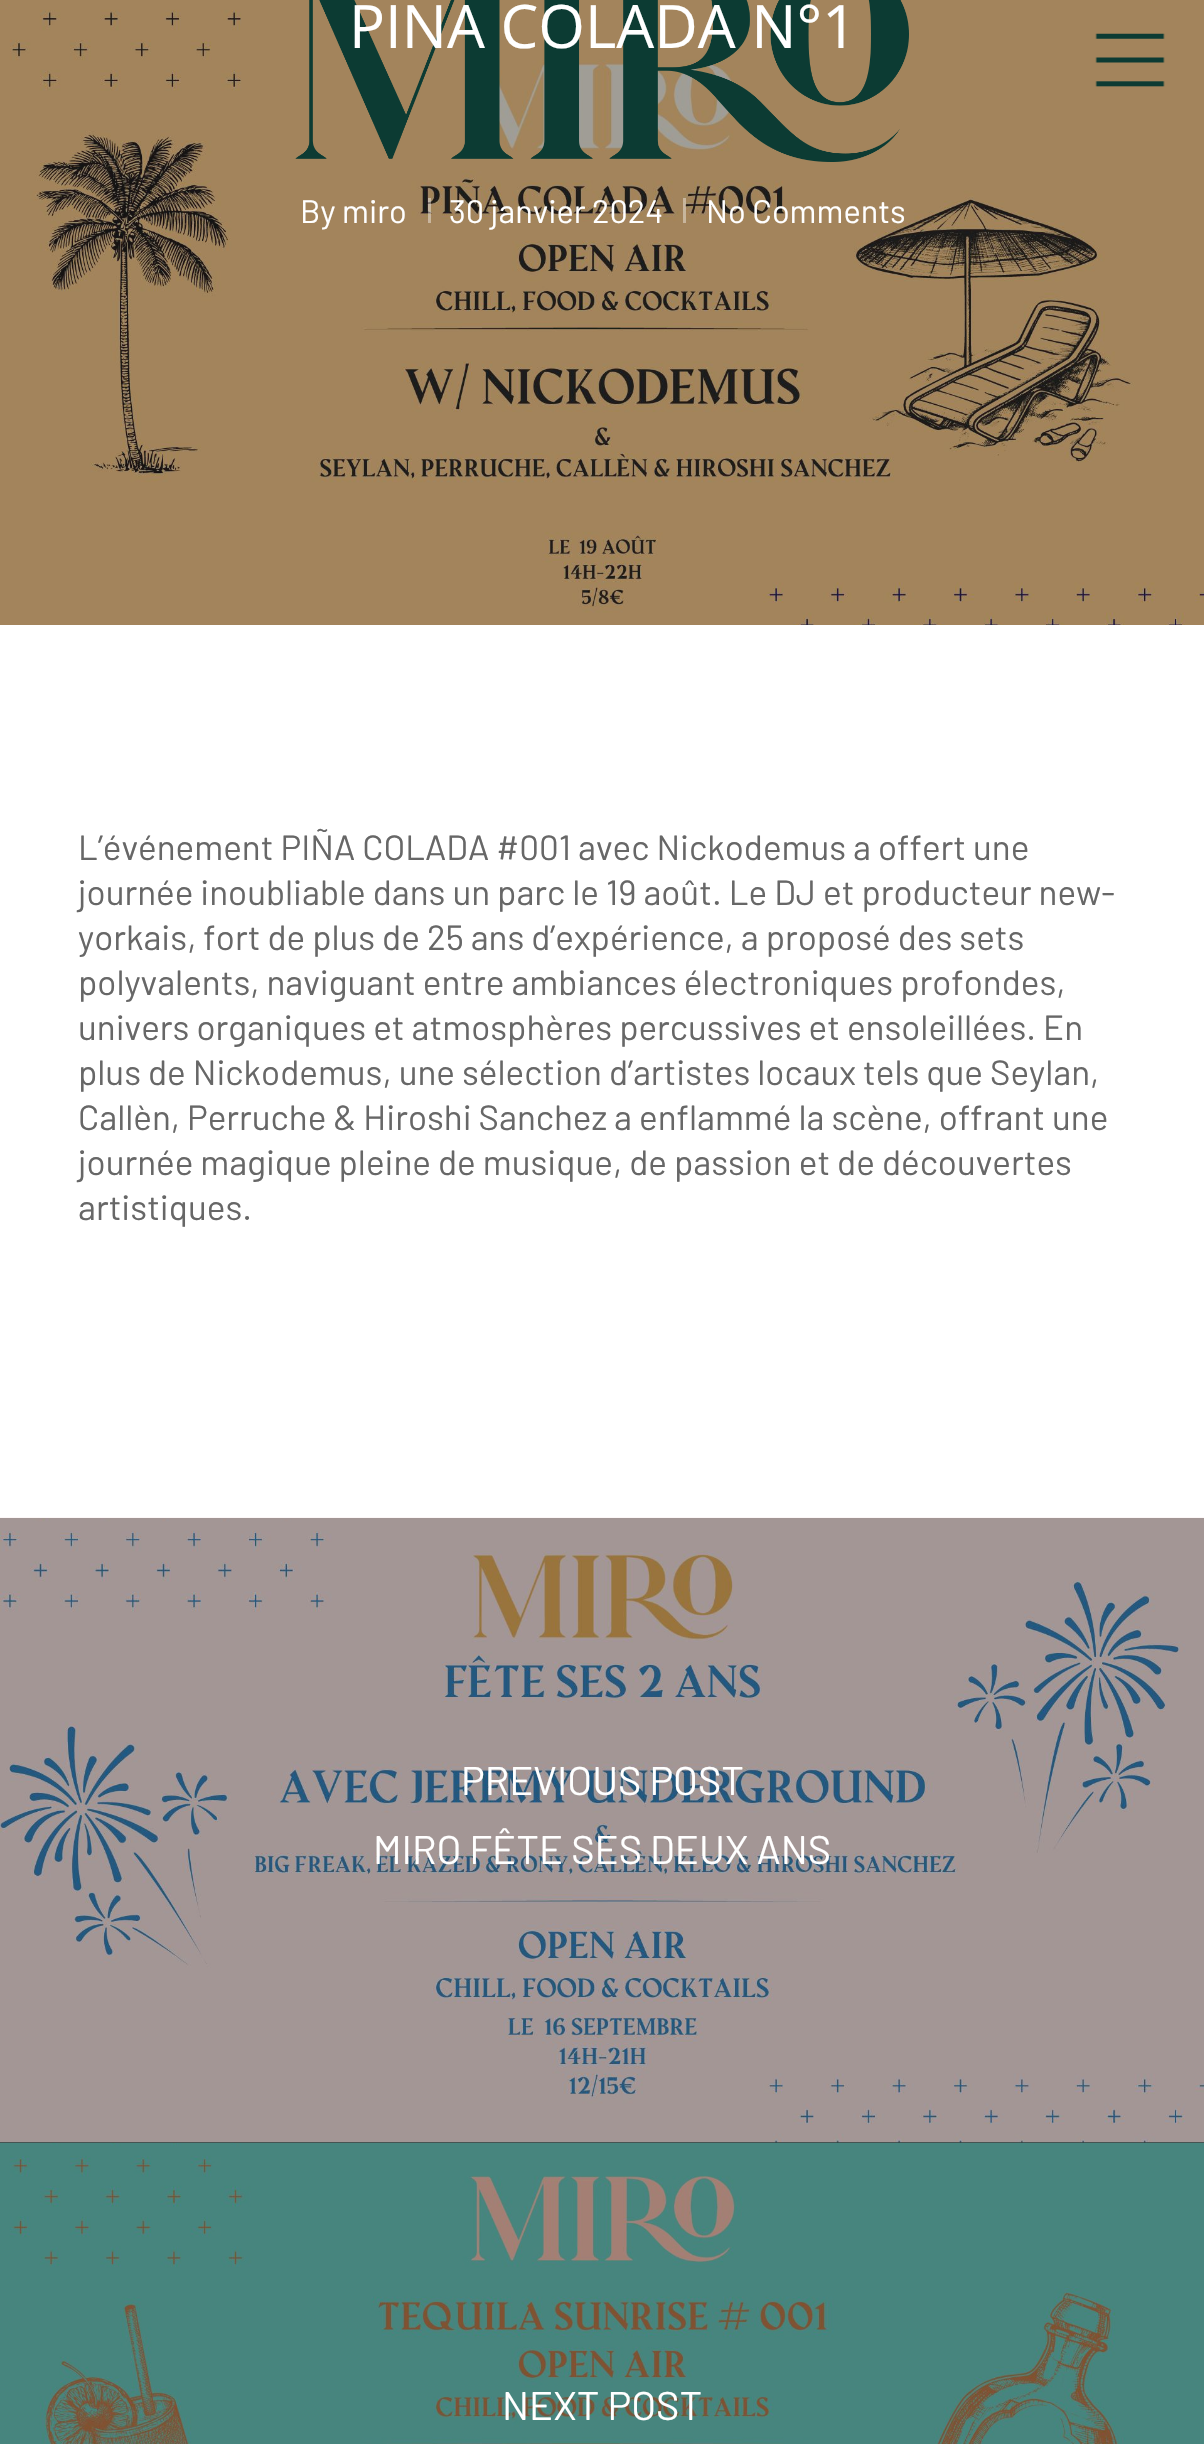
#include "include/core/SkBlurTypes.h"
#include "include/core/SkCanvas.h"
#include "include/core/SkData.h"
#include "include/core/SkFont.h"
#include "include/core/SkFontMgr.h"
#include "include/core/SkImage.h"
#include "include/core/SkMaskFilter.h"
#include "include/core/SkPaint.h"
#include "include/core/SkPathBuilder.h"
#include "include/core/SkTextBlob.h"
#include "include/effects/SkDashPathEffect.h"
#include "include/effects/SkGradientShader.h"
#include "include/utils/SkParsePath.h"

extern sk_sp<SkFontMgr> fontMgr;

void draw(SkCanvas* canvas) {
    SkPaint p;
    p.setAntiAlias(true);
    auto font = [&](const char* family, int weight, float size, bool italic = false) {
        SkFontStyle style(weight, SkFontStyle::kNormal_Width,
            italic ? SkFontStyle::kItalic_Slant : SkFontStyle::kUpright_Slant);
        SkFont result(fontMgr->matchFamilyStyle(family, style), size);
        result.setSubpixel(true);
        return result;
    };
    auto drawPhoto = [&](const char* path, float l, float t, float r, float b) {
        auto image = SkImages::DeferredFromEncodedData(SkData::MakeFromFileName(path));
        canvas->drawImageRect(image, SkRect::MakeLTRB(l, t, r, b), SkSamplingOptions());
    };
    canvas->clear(0xFFFFFFFF);
    drawPhoto("media/1.png", 0, 0, 1204, 625);
    drawPhoto("media/2.png", 295, 0, 909, 162);
    auto font1 = font("Open Sans", 400, 60);
    p.setColor(0xFFFFFFFF);
    canvas->drawString("PINA COLADA N°1", 349, 48, font1, p);
    auto font2 = font("Barlow", 400, 32.5f);
    canvas->drawString("By", 300, 223, font2, p);
    canvas->drawString("miro", 342, 223, font2, p);
    p.setColor(0x66FFFFFF);
    canvas->drawRect(SkRect::MakeLTRB(428, 198, 431, 223), p);
    p.setColor(0xFFFFFFFF);
    canvas->drawString("30 janvier 2024", 449, 223, font2, p);
    p.setColor(0x66FFFFFF);
    canvas->drawRect(SkRect::MakeLTRB(683, 198, 686, 223), p);
    p.setColor(0xFFFFFFFF);
    canvas->drawString("No Comments", 706, 223, font2, p);
    auto font3 = font("Barlow", 400, 35);
    p.setColor(0xFF676767);
    {
        const struct { const char* s; float x, y; } items[] = {
            {"L’événement PIÑA COLADA #001 avec Nickodemus a offert une", 78, 860},
            {"journée inoubliable dans un parc le 19 août. Le DJ et producteur new-", 78, 905},
            {"yorkais, fort de plus de 25 ans d’expérience, a proposé des sets", 78, 950},
            {"polyvalents, naviguant entre ambiances électroniques profondes,", 78, 995},
            {"univers organiques et atmosphères percussives et ensoleillées. En", 78, 1040},
            {"plus de Nickodemus, une sélection d’artistes locaux tels que Seylan,", 78, 1085},
            {"Callèn, Perruche & Hiroshi Sanchez a enflammé la scène, offrant une", 78, 1130},
            {"journée magique pleine de musique, de passion et de découvertes", 78, 1175},
            {"artistiques.", 78, 1220},
        };
        for (auto [s, x, y] : items) {
            canvas->drawString(s, x, y, font3, p);
        }
    }
    p.setColor(0xFF333333);
    canvas->drawRect(SkRect::MakeLTRB(0, 2142, 1204, 2143), p);
    drawPhoto("media/3.png", 0, 1517, 1204, 2143);
    drawPhoto("media/4.png", 0, 2142, 1204, 2444);
    p.setColor(0x590D0D0D);
    canvas->drawRect(SkRect::MakeLTRB(0, 1518, 1204, 2143), p);
    auto font4 = font("Barlow", 400, 40);
    p.setColor(0xFFFFFFFF);
    {
        const struct { const char* s; float x, y; } items[] = {
            {"PREVIOUS POST", 461, 1795},
            {"MIRO FÊTE SES DEUX ANS", 373, 1864},
            {"NEXT POST", 502, 2420},
        };
        for (auto [s, x, y] : items) {
            canvas->drawString(s, x, y, font4, p);
        }
    }
    drawPhoto("media/5.png", 1095, 33, 1165, 87);
}
